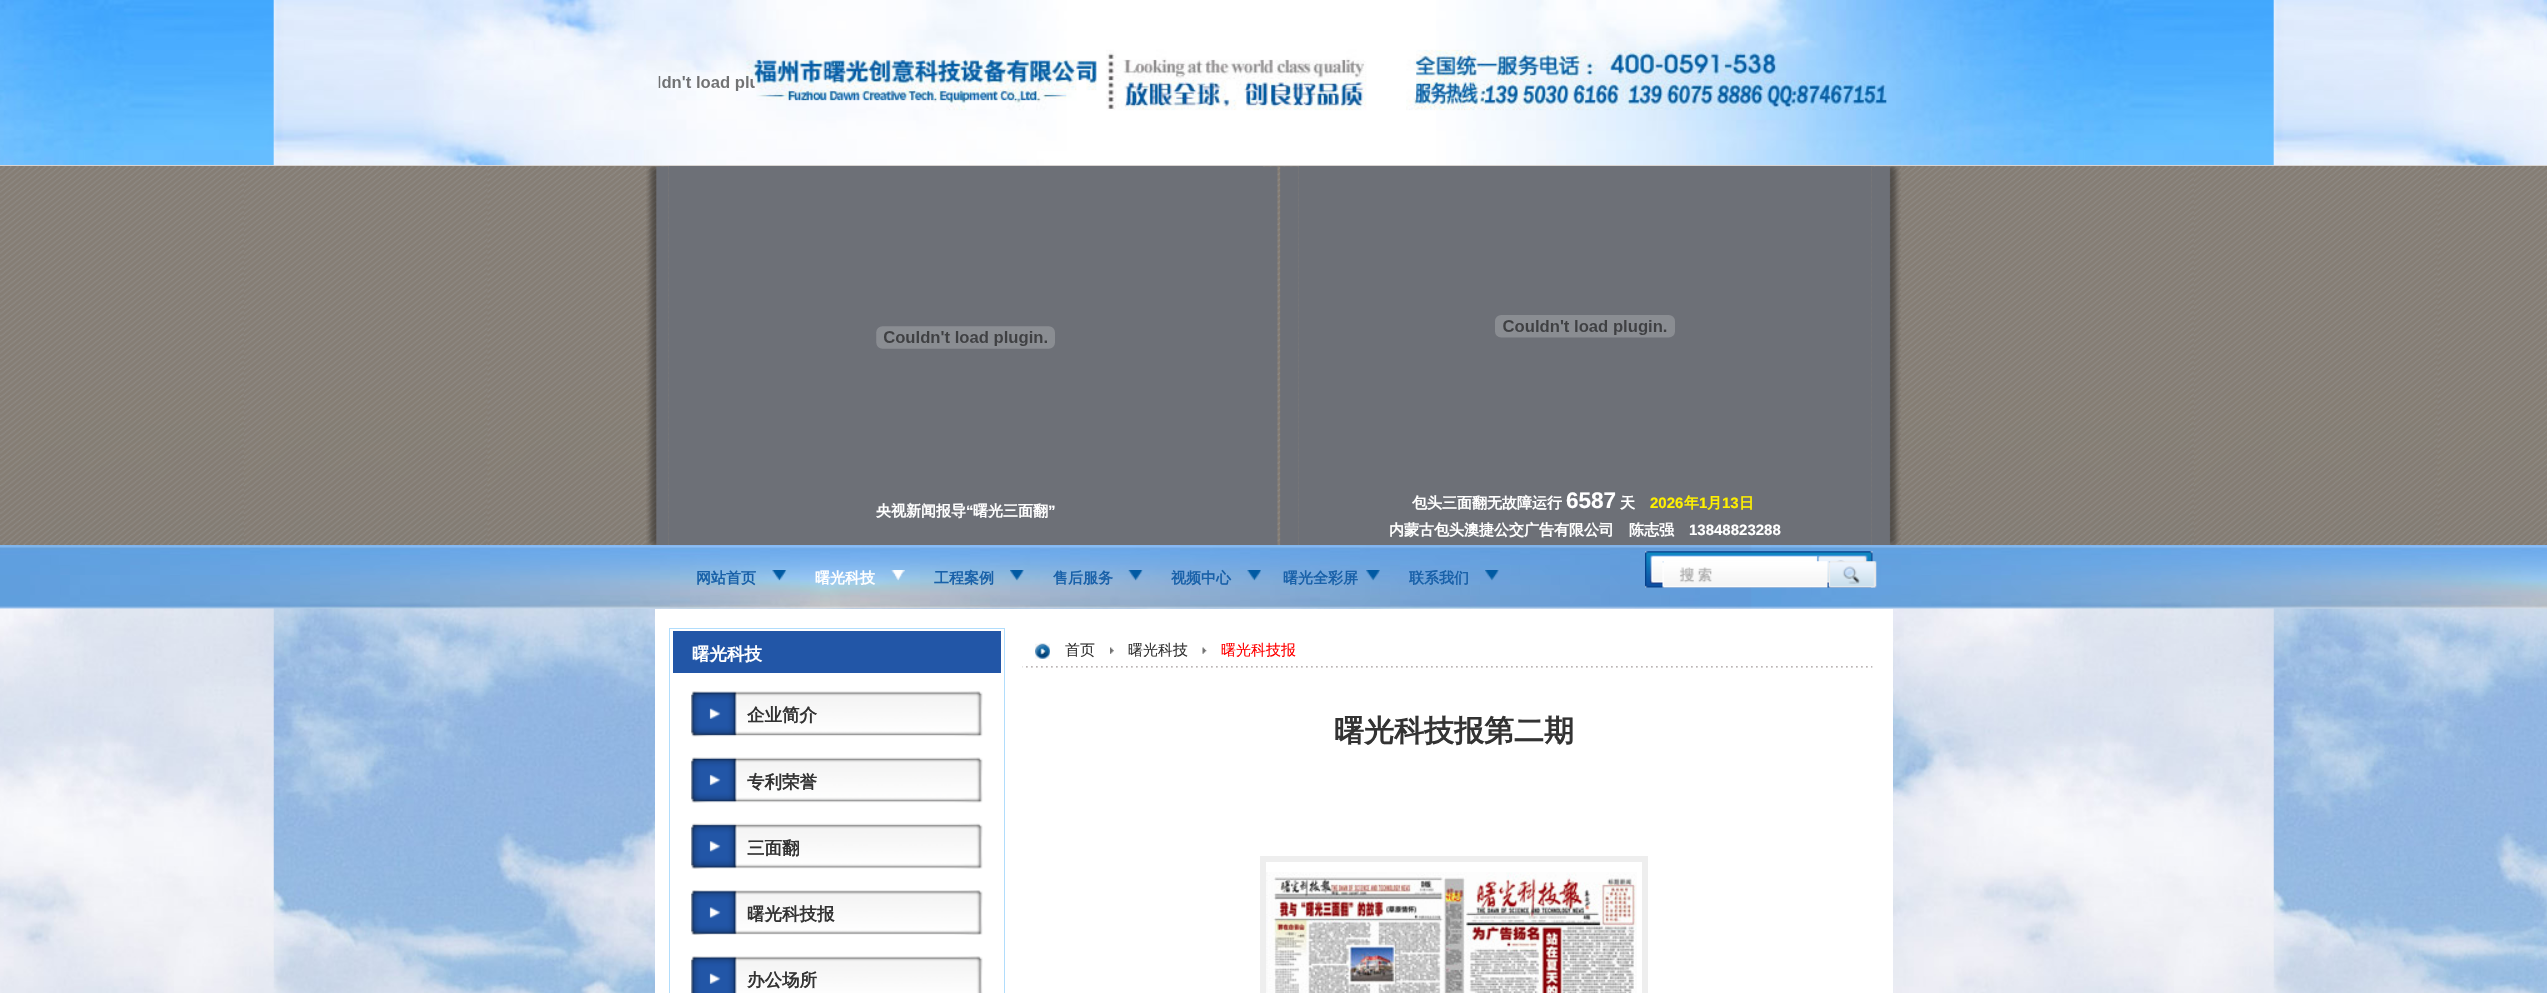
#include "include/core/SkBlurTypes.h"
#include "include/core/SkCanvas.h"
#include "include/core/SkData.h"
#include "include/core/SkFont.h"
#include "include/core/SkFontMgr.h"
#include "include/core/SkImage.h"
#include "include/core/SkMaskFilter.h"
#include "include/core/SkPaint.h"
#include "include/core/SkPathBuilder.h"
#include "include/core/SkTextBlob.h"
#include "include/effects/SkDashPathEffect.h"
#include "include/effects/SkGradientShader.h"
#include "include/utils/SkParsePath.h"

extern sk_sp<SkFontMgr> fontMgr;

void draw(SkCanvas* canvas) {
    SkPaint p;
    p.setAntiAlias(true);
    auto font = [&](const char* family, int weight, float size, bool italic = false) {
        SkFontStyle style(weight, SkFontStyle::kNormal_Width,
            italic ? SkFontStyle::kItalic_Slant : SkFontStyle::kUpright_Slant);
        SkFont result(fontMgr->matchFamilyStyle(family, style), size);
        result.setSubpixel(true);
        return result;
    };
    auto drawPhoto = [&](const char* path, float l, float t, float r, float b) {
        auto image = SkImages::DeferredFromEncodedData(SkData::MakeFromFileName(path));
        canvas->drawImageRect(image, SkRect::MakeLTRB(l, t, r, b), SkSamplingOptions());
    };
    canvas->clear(0xFFFFFFFF);
    drawPhoto("media/1.png", 0, 608, 2547, 993);
    drawPhoto("media/2.png", 0, 0, 2547, 165);
    drawPhoto("media/3.png", 646, 0, 1901, 165);
    drawPhoto("media/4.png", 658, 72, 755, 91);
    drawPhoto("media/5.png", 0, 166, 2547, 545);
    p.setColor(0xFFD9D5D2);
    canvas->drawRect(SkRect::MakeLTRB(0, 165, 2547, 166), p);
    drawPhoto("media/6.png", 646, 166, 669, 545);
    p.setColor(0xFF6D7077);
    canvas->drawRect(SkRect::MakeLTRB(669, 166, 1263, 545), p);
    drawPhoto("media/7.png", 876, 326, 1055, 349);
    auto font1 = font("WenQuanYi Zen Hei", 700, 15);
    p.setColor(0xFFFFFFFF);
    canvas->drawString("央视新闻报导", 876, 516, font1, p);
    auto font2 = font("Liberation Sans", 700, 15);
    canvas->drawString("“", 966, 516, font2, p);
    canvas->drawString("曙光三面翻", 973, 516, font1, p);
    canvas->drawString("”", 1048, 516, font2, p);
    drawPhoto("media/8.png", 1263, 166, 1299, 545);
    p.setColor(0xFF6D7077);
    canvas->drawRect(SkRect::MakeLTRB(1299, 166, 1871, 545), p);
    drawPhoto("media/9.png", 1495, 315, 1675, 338);
    p.setColor(0xFFFFFFFF);
    canvas->drawString("包头三面翻无故障运行", 1412, 508, font1, p);
    auto font3 = font("Liberation Sans", 700, 22.5f);
    canvas->drawString("6587", 1566, 508, font3, p);
    canvas->drawString("天", 1620, 508, font1, p);
    p.setColor(0xFFFFF000);
    canvas->drawString("2026", 1650, 508, font2, p);
    canvas->drawString("年", 1684, 508, font1, p);
    canvas->drawString("1", 1699, 508, font2, p);
    canvas->drawString("月", 1707, 508, font1, p);
    canvas->drawString("13", 1722, 508, font2, p);
    canvas->drawString("日", 1739, 508, font1, p);
    p.setColor(0xFFFFFFFF);
    canvas->drawString("内蒙古包头澳捷公交广告有限公司　陈志强", 1389, 535, font1, p);
    canvas->drawString("13848823288", 1689, 535, font2, p);
    drawPhoto("media/10.png", 1871, 166, 1902, 545);
    drawPhoto("media/11.png", 0, 545, 2547, 609);
    drawPhoto("media/12.png", 772, 570, 787, 581);
    p.setColor(0xFF1961A9);
    canvas->drawString("网站首页", 696, 583, font1, p);
    drawPhoto("media/13.png", 891, 570, 905, 581);
    p.setColor(0xFFFFFFFF);
    canvas->drawString("曙光科技", 815, 583, font1, p);
    drawPhoto("media/14.png", 1010, 570, 1024, 581);
    p.setColor(0xFF1961A9);
    canvas->drawString("工程案例", 934, 583, font1, p);
    drawPhoto("media/15.png", 1128, 570, 1143, 581);
    canvas->drawString("售后服务", 1053, 583, font1, p);
    drawPhoto("media/16.png", 1247, 570, 1261, 581);
    canvas->drawString("视频中心", 1171, 583, font1, p);
    drawPhoto("media/17.png", 1366, 570, 1380, 581);
    canvas->drawString("曙光全彩屏", 1283, 583, font1, p);
    drawPhoto("media/18.png", 1485, 570, 1499, 581);
    canvas->drawString("联系我们", 1409, 583, font1, p);
    drawPhoto("media/19.png", 1645, 551, 1873, 588);
    drawPhoto("media/20.png", 1662, 561, 1828, 588);
    drawPhoto("media/21.png", 1828, 561, 1877, 588);
    p.setColor(0xFFFFFFFF);
    canvas->drawRect(SkRect::MakeLTRB(655, 609, 1893, 993), p);
    p.setStyle(SkPaint::kStroke_Style);
    p.setStrokeWidth(1);
    p.setColor(0xFFB1DDFC);
    canvas->drawRect(SkRect::MakeLTRB(669.5f, 628.5f, 1004.5f, 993.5f), p);
    p.setStyle(SkPaint::kFill_Style);
    p.setColor(0xFF2256A7);
    canvas->drawRect(SkRect::MakeLTRB(673, 631, 1001, 673), p);
    auto font4 = font("WenQuanYi Zen Hei", 700, 17.5f);
    p.setColor(0xFFFFFFFF);
    canvas->drawString("曙光科技", 692, 660, font4, p);
    drawPhoto("media/22.png", 691, 691, 983, 737);
    p.setColor(0xFF333333);
    canvas->drawString("企业简介", 747, 721, font4, p);
    drawPhoto("media/23.png", 691, 757, 983, 803);
    canvas->drawString("专利荣誉", 747, 788, font4, p);
    drawPhoto("media/24.png", 691, 823, 983, 869);
    canvas->drawString("三面翻", 747, 854, font4, p);
    drawPhoto("media/25.png", 691, 890, 983, 935);
    canvas->drawString("曙光科技报", 747, 920, font4, p);
    drawPhoto("media/26.png", 691, 956, 983, 993);
    canvas->drawString("办公场所", 747, 986, font4, p);
    drawPhoto("media/27.png", 1022, 666, 1873, 668);
    drawPhoto("media/28.png", 1035, 643, 1050, 659);
    auto font5 = font("WenQuanYi Zen Hei", 500, 15);
    canvas->drawString("首页", 1065, 655, font5, p);
    drawPhoto("media/29.png", 1110, 647, 1114, 654);
    canvas->drawString("曙光科技", 1128, 655, font5, p);
    drawPhoto("media/30.png", 1202, 647, 1207, 654);
    p.setColor(0xFFFF0000);
    canvas->drawString("曙光科技报", 1221, 655, font5, p);
    auto font6 = font("WenQuanYi Zen Hei", 700, 30);
    p.setColor(0xFF333333);
    canvas->drawString("曙光科技报第二期", 1334, 741, font6, p);
    p.setStyle(SkPaint::kStroke_Style);
    p.setStrokeWidth(6);
    p.setColor(0xFFEEEEEE);
    canvas->drawRect(SkRect::MakeLTRB(1263, 859, 1645, 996), p);
    drawPhoto("media/31.png", 1266, 872, 1637, 993);
}
